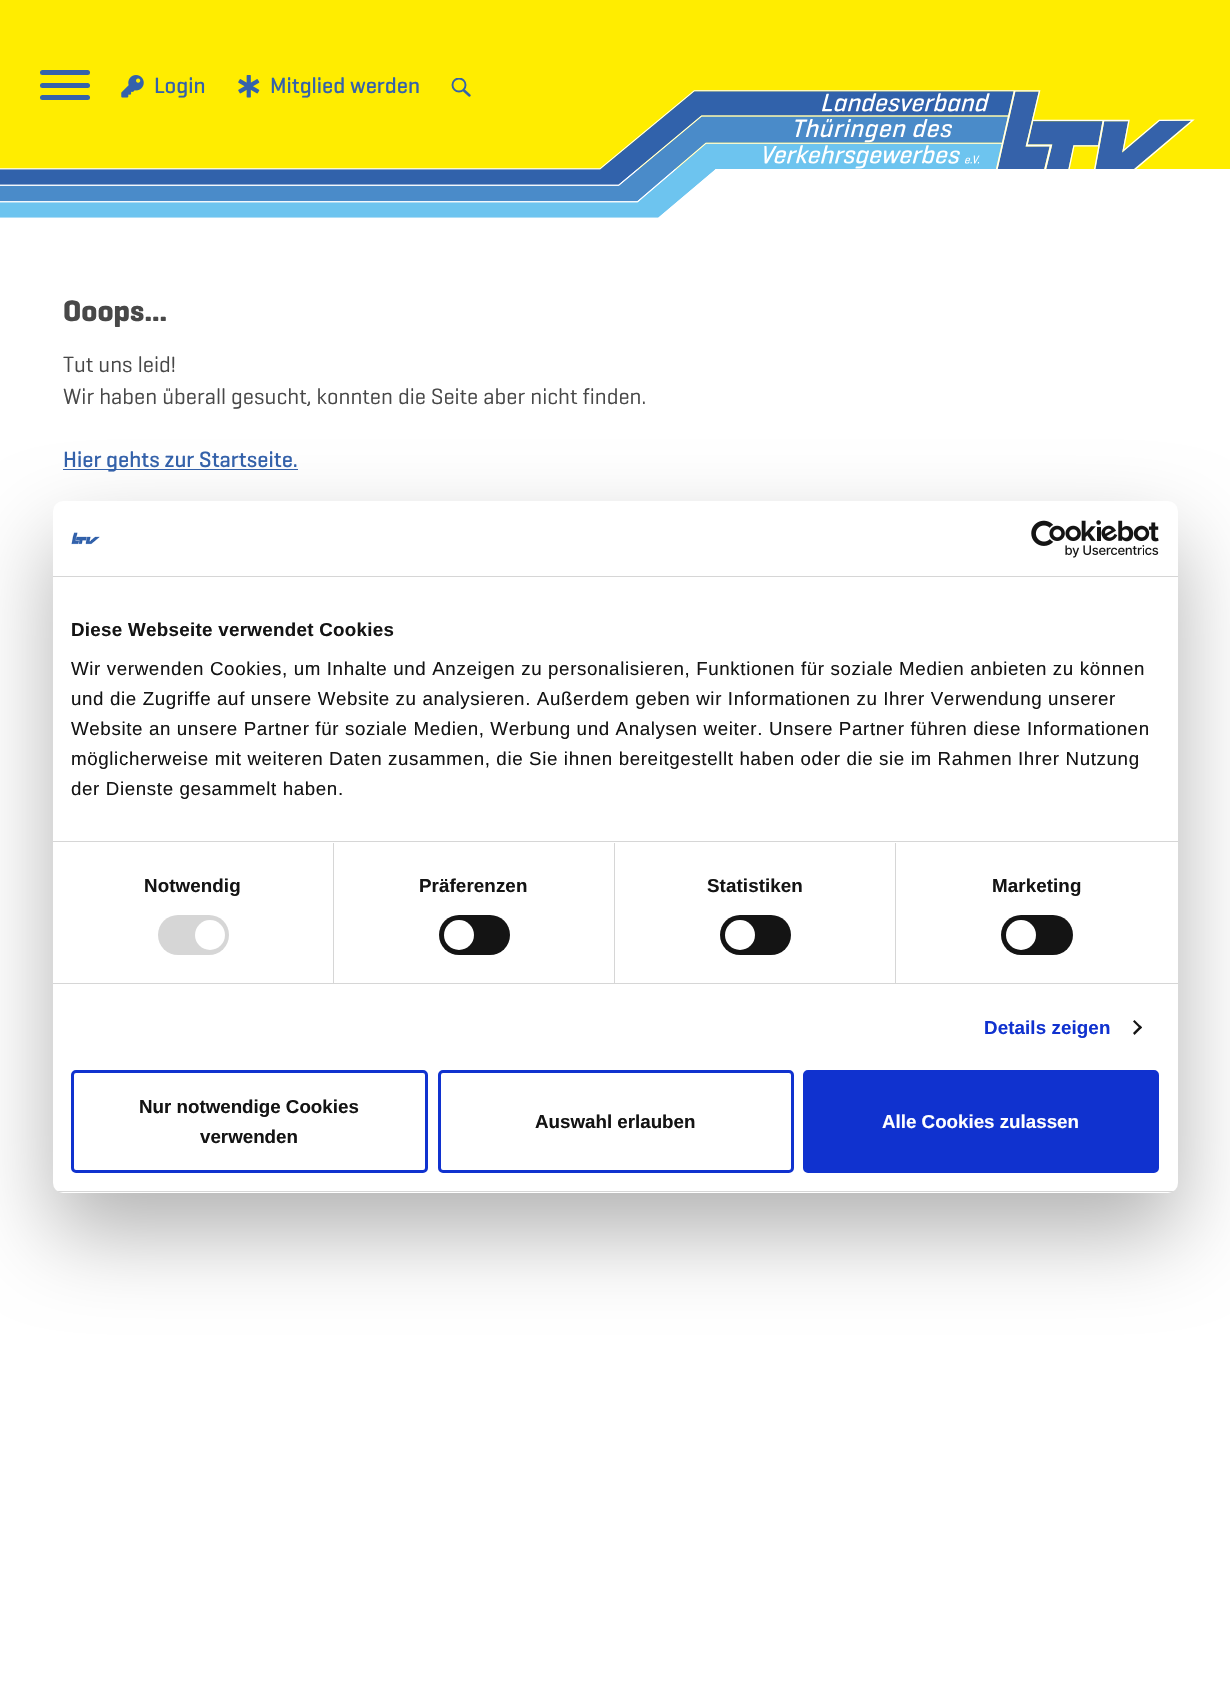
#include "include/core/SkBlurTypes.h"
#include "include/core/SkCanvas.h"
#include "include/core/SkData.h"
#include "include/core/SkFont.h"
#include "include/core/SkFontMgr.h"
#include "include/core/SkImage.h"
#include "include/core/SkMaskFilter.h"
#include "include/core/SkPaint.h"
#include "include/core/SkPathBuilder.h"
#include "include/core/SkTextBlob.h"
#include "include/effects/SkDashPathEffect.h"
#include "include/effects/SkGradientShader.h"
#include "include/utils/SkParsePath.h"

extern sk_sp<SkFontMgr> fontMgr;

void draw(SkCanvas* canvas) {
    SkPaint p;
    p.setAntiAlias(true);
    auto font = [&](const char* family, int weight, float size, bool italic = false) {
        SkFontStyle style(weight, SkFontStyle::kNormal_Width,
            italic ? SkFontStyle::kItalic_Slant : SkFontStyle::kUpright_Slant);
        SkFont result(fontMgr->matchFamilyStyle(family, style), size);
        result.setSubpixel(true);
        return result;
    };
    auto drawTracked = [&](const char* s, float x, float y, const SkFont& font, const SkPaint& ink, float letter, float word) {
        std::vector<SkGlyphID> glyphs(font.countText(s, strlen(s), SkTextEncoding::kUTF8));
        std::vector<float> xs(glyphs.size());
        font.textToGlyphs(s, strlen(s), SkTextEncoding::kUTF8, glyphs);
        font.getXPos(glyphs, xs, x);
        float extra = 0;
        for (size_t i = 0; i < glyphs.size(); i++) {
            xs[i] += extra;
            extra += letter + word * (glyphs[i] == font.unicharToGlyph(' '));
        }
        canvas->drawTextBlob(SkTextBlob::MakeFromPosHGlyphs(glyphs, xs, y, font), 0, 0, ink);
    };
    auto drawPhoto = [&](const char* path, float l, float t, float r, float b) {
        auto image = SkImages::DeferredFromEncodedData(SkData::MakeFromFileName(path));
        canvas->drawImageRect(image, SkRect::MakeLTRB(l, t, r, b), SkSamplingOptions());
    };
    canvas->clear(0xFFFFFFFF);
    p.setColor(0xFFFFED00);
    canvas->drawRect(SkRect::MakeLTRB(0, 0, 1230, 169), p);
    drawPhoto("media/1.png", 0, 90, 1195, 218);
    p.setColor(0xFF3462AB);
    canvas->drawRoundRect(SkRect::MakeLTRB(40, 83, 90, 88), 2.5f, 2.5f, p);
    canvas->drawRoundRect(SkRect::MakeLTRB(40, 70, 90, 75), 2.5f, 2.5f, p);
    canvas->drawRoundRect(SkRect::MakeLTRB(40, 95, 90, 100), 2.5f, 2.5f, p);
    drawPhoto("media/2.png", 121, 75, 144, 98);
    auto font1 = font("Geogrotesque", 500, 22.5f);
    canvas->drawString("Login", 154, 93, font1, p);
    drawPhoto("media/3.png", 238, 75, 260, 98);
    canvas->drawString("Mitglied werden", 270, 93, font1, p);
    canvas->save();
    canvas->clipRect(SkRect::MakeLTRB(451, 78, 471, 98));
    p.setStyle(SkPaint::kStroke_Style);
    p.setStrokeWidth(1.9f);
    canvas->drawCircle(459, 85, 6.5f, p);
    canvas->restore();
    p.setStrokeWidth(2.5f);
    p.setStrokeCap(SkPaint::kRound_Cap);
    canvas->drawPath(SkPathBuilder().moveTo(469.5f, 95.5f).lineTo(464, 90.5f).detach(), p);
    auto font2 = font("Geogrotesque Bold", 700, 30);
    p.setStyle(SkPaint::kFill_Style);
    p.setColor(0xFF484848);
    canvas->drawString("Ooops...", 63, 321, font2, p);
    auto font3 = font("Geogrotesque", 400, 22.5f);
    canvas->drawString("Tut uns leid!", 63, 372, font3, p);
    canvas->drawString("Wir haben überall gesucht, konnten die Seite aber nicht finden.", 63, 404, font3, p);
    p.setColor(0xFF3462AB);
    canvas->drawRect(SkRect::MakeLTRB(63, 469, 298, 470), p);
    canvas->drawString("Hier gehts zur Startseite.", 63, 467, font1, p);
    p.setColor(0x4D000000);
    p.setMaskFilter(SkMaskFilter::MakeBlur(kNormal_SkBlurStyle, 42.5f));
    canvas->drawRoundRect(SkRect::MakeLTRB(53, 541, 1178, 1233), 10, 10, p);
    p.setMaskFilter(nullptr);
    p.setColor(0xFFFFFFFF);
    canvas->drawRoundRect(SkRect::MakeLTRB(53, 501, 1178, 1193), 10, 10, p);
    p.setColor(0xFFD6D6D6);
    canvas->drawRect(SkRect::MakeLTRB(53, 576, 1178, 577), p);
    drawPhoto("media/4.png", 71, 532, 100, 545);
    drawPhoto("media/5.png", 1031, 520, 1159, 558);
    canvas->drawRect(SkRect::MakeLTRB(53, 841, 1178, 842), p);
    auto font4 = font("Liberation Sans", 700, 18.75f);
    p.setColor(0xFF141414);
    drawTracked("Diese Webseite verwendet Cookies", 71, 636, font4, p, 0.3f, 0);
    auto font5 = font("Liberation Sans", 400, 18.75f);
    {
        const struct { const char* s; float x, y; } items[] = {
            {"Wir verwenden Cookies, um Inhalte und Anzeigen zu personalisieren, Funktionen für soziale Medien anbieten zu können", 71, 675},
            {"und die Zugriffe auf unsere Website zu analysieren. Außerdem geben wir Informationen zu Ihrer Verwendung unserer", 71, 705},
            {"Website an unsere Partner für soziale Medien, Werbung und Analysen weiter. Unsere Partner führen diese Informationen", 71, 735},
            {"möglicherweise mit weiteren Daten zusammen, die Sie ihnen bereitgestellt haben oder die sie im Rahmen Ihrer Nutzung", 71, 765},
            {"der Dienste gesammelt haben.", 71, 795},
        };
        for (auto [s, x, y] : items) {
            drawTracked(s, x, y, font5, p, 0.62f, 0);
        }
    }
    p.setColor(0xFFD6D6D6);
    canvas->drawRect(SkRect::MakeLTRB(53, 983, 1178, 984), p);
    canvas->drawRect(SkRect::MakeLTRB(333, 843, 334, 983), p);
    p.setColor(0xFF141414);
    drawTracked("Notwendig", 144, 892, font4, p, 0.1f, 0);
    p.setColor(0xFFD6D6D6);
    canvas->drawRoundRect(SkRect::MakeLTRB(158, 915, 229, 955), 20, 20, p);
    p.setColor(0xFFFFFFFF);
    canvas->drawCircle(210, 935, 15, p);
    p.setColor(0xFFD6D6D6);
    canvas->drawRect(SkRect::MakeLTRB(614, 843, 615, 983), p);
    p.setColor(0xFF141414);
    drawTracked("Präferenzen", 419, 892, font4, p, 0.1f, 0);
    canvas->drawRoundRect(SkRect::MakeLTRB(439, 915, 510, 955), 20, 20, p);
    p.setColor(0xFFFFFFFF);
    canvas->drawCircle(459, 935, 15, p);
    p.setColor(0xFFD6D6D6);
    canvas->drawRect(SkRect::MakeLTRB(895, 843, 896, 983), p);
    p.setColor(0xFF141414);
    drawTracked("Statistiken", 707, 892, font4, p, 0.1f, 0);
    canvas->drawRoundRect(SkRect::MakeLTRB(720, 915, 791, 955), 20, 20, p);
    p.setColor(0xFFFFFFFF);
    canvas->drawCircle(740, 935, 15, p);
    p.setColor(0xFF141414);
    drawTracked("Marketing", 992, 892, font4, p, 0.1f, 0);
    canvas->drawRoundRect(SkRect::MakeLTRB(1001, 915, 1073, 955), 20, 20, p);
    p.setColor(0xFFFFFFFF);
    canvas->drawCircle(1021, 935, 15, p);
    p.setColor(0xFF1032CF);
    drawTracked("Details zeigen", 984, 1034, font4, p, 0.1f, 0);
    p.setColor(0xFF141414);
    canvas->drawPath(SkPathBuilder().moveTo(1134.5f, 1020).lineTo(1142, 1027.5f).lineTo(1140.5f, 1029).lineTo(1133, 1021.5f).close().detach(), p);
    canvas->drawPath(SkPathBuilder().moveTo(1140.5f, 1025.5f).lineTo(1142, 1027.5f).lineTo(1134.5f, 1035).lineTo(1133, 1033).close().detach(), p);
    canvas->save();
    canvas->clipPath(SkPathBuilder().moveTo(63, 501).lineTo(1168, 501).cubicTo(1173.5f, 501, 1178, 505.5f, 1178, 511).lineTo(1178, 1183).cubicTo(1178, 1188.5f, 1173.5f, 1193, 1168, 1193).lineTo(63, 1193).cubicTo(57.5f, 1193, 53, 1188.5f, 53, 1183).lineTo(53, 511).cubicTo(53, 505.5f, 57.5f, 501, 63, 501).close().detach(), true);
    p.setColor(0xFFD6D6D6);
    canvas->drawRect(SkRect::MakeLTRB(53, 1191, 1178, 1192), p);
    canvas->restore();
    p.setStyle(SkPaint::kStroke_Style);
    p.setStrokeWidth(3);
    p.setStrokeCap(SkPaint::kButt_Cap);
    p.setColor(0xFF1032CF);
    canvas->drawRoundRect(SkRect::MakeLTRB(72.5f, 1071.5f, 426.5f, 1171.5f), 3.5f, 3.5f, p);
    p.setStyle(SkPaint::kFill_Style);
    p.setColor(0xFF141414);
    canvas->drawString("Nur notwendige Cookies", 139, 1113, font4, p);
    canvas->drawString("verwenden", 200, 1143, font4, p);
    p.setStyle(SkPaint::kStroke_Style);
    p.setColor(0xFF1032CF);
    canvas->drawRoundRect(SkRect::MakeLTRB(439.5f, 1071.5f, 792.5f, 1171.5f), 3.5f, 3.5f, p);
    p.setStyle(SkPaint::kFill_Style);
    p.setColor(0xFF141414);
    canvas->drawString("Auswahl erlauben", 535, 1128, font4, p);
    p.setColor(0xFF1032CF);
    canvas->drawRoundRect(SkRect::MakeLTRB(804.5f, 1071.5f, 1157.5f, 1171.5f), 3.5f, 3.5f, p);
    p.setStyle(SkPaint::kStroke_Style);
    canvas->drawRoundRect(SkRect::MakeLTRB(804.5f, 1071.5f, 1157.5f, 1171.5f), 3.5f, 3.5f, p);
    p.setStyle(SkPaint::kFill_Style);
    p.setColor(0xFFFFFFFF);
    canvas->drawString("Alle Cookies zulassen", 882, 1128, font4, p);
}
